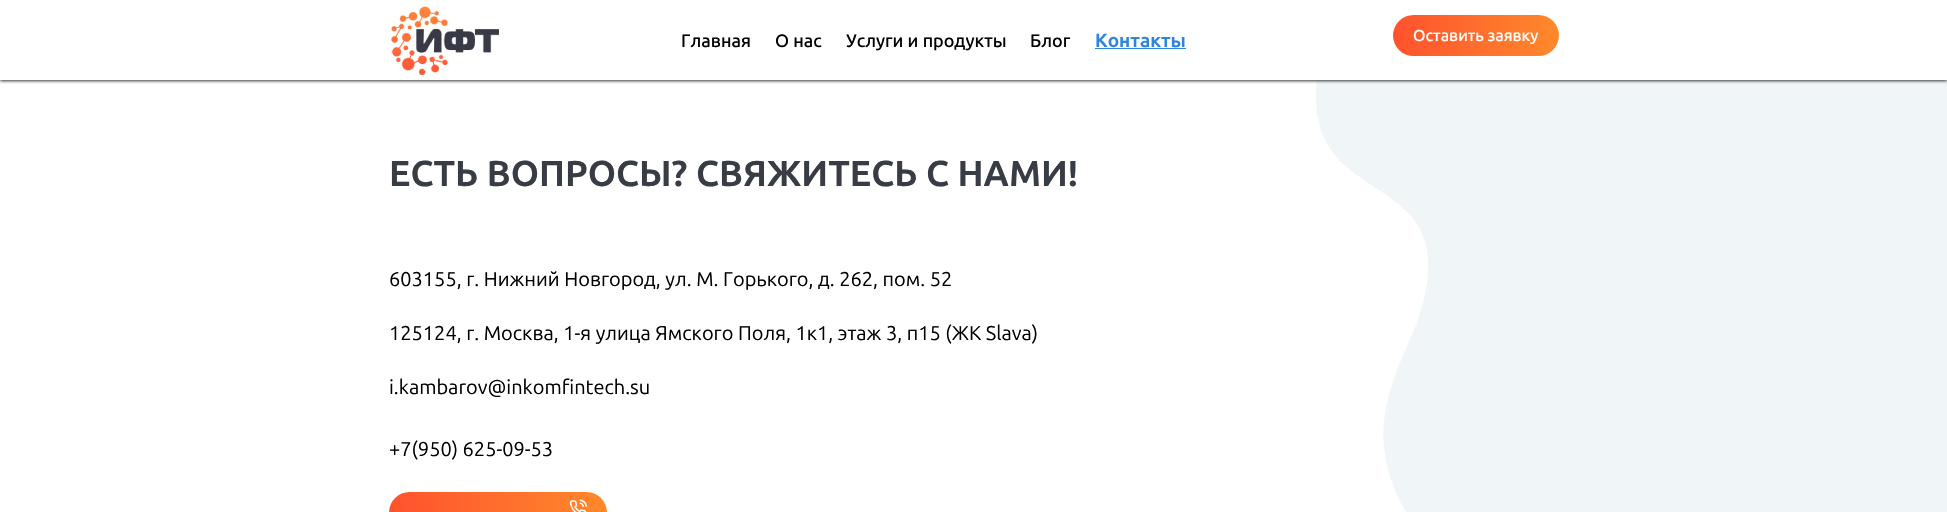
#include "include/core/SkBlurTypes.h"
#include "include/core/SkCanvas.h"
#include "include/core/SkData.h"
#include "include/core/SkFont.h"
#include "include/core/SkFontMgr.h"
#include "include/core/SkImage.h"
#include "include/core/SkMaskFilter.h"
#include "include/core/SkPaint.h"
#include "include/core/SkPathBuilder.h"
#include "include/core/SkTextBlob.h"
#include "include/effects/SkDashPathEffect.h"
#include "include/effects/SkGradientShader.h"
#include "include/utils/SkParsePath.h"

extern sk_sp<SkFontMgr> fontMgr;

void draw(SkCanvas* canvas) {
    SkPaint p;
    p.setAntiAlias(true);
    auto font = [&](const char* family, int weight, float size, bool italic = false) {
        SkFontStyle style(weight, SkFontStyle::kNormal_Width,
            italic ? SkFontStyle::kItalic_Slant : SkFontStyle::kUpright_Slant);
        SkFont result(fontMgr->matchFamilyStyle(family, style), size);
        result.setSubpixel(true);
        return result;
    };
    auto drawPhoto = [&](const char* path, float l, float t, float r, float b) {
        auto image = SkImages::DeferredFromEncodedData(SkData::MakeFromFileName(path));
        canvas->drawImageRect(image, SkRect::MakeLTRB(l, t, r, b), SkSamplingOptions());
    };
    canvas->clear(0xFFFFFFFF);
    drawPhoto("media/2.png", 1316, 80, 1947, 512);
    canvas->save();
    canvas->clipRect(SkRect::MakeLTRB(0, 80, 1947, 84));
    p.setColor(0xFF333333);
    p.setMaskFilter(SkMaskFilter::MakeBlur(kNormal_SkBlurStyle, 1.5f));
    canvas->drawRect(SkRect::MakeLTRB(0, 1, 1947, 81), p);
    p.setMaskFilter(nullptr);
    canvas->restore();
    drawPhoto("media/1.png", 391, 6, 499, 75);
    auto font1 = font("Ubuntu", 500, 18);
    p.setColor(0xFF000000);
    {
        const struct { const char* s; float x, y; } items[] = {
            {"Главная", 681, 47},
            {"О нас", 775, 47},
            {"Услуги и продукты", 846, 47},
            {"Блог", 1030, 47},
        };
        for (auto [s, x, y] : items) {
            canvas->drawString(s, x, y, font1, p);
        }
    }
    auto font2 = font("Ubuntu", 700, 19);
    p.setColor(0xFF2F85DC);
    canvas->drawString("Контакты", 1095, 47, font2, p);
    canvas->drawRect(SkRect::MakeLTRB(1095, 48, 1186, 49), p);
    {
        const SkColor colors[] = {0xFFFF522E, 0xFFFF892B};
        const float stops[] = {0, 1};
        const SkPoint ends[] = {{1393, 36}, {1559, 35}};
        p.setShader(SkGradientShader::MakeLinear(ends, colors, stops, 2, SkTileMode::kClamp));
        p.setAlpha(255);
    }
    canvas->drawRoundRect(SkRect::MakeLTRB(1393, 15, 1559, 56), 20.5f, 20.5f, p);
    auto font3 = font("Ubuntu", 500, 16);
    p.setShader(nullptr);
    p.setColor(0xFFFFFFFF);
    canvas->drawString("Оставить заявку", 1413, 41, font3, p);
    auto font4 = font("Ubuntu", 700, 36);
    p.setColor(0xFF383C45);
    canvas->drawString("ЕСТЬ ВОПРОСЫ? СВЯЖИТЕСЬ С НАМИ!", 389, 186, font4, p);
    auto font5 = font("Ubuntu", 400, 20);
    p.setColor(0xFF000000);
    {
        const struct { const char* s; float x, y; } items[] = {
            {"603155, г. Нижний Новгород, ул. М. Горького, д. 262, пом. 52", 389, 286},
            {"125124, г. Москва, 1-я улица Ямского Поля, 1к1, этаж 3, п15 (ЖК Slava)", 389, 340},
            {"i.kambarov@inkomfintech.su", 389, 394},
            {"+7(950) 625-09-53", 389, 456},
        };
        for (auto [s, x, y] : items) {
            canvas->drawString(s, x, y, font5, p);
        }
    }
    {
        const SkColor colors[] = {0xFFFF522E, 0xFFFF892B};
        const float stops[] = {0, 1};
        const SkPoint ends[] = {{389, 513}, {607, 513}};
        p.setShader(SkGradientShader::MakeLinear(ends, colors, stops, 2, SkTileMode::kClamp));
        p.setAlpha(255);
    }
    canvas->drawRoundRect(SkRect::MakeLTRB(389, 492, 607, 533), 20.5f, 20.5f, p);
    drawPhoto("media/3.png", 569, 499, 587, 512);
}
